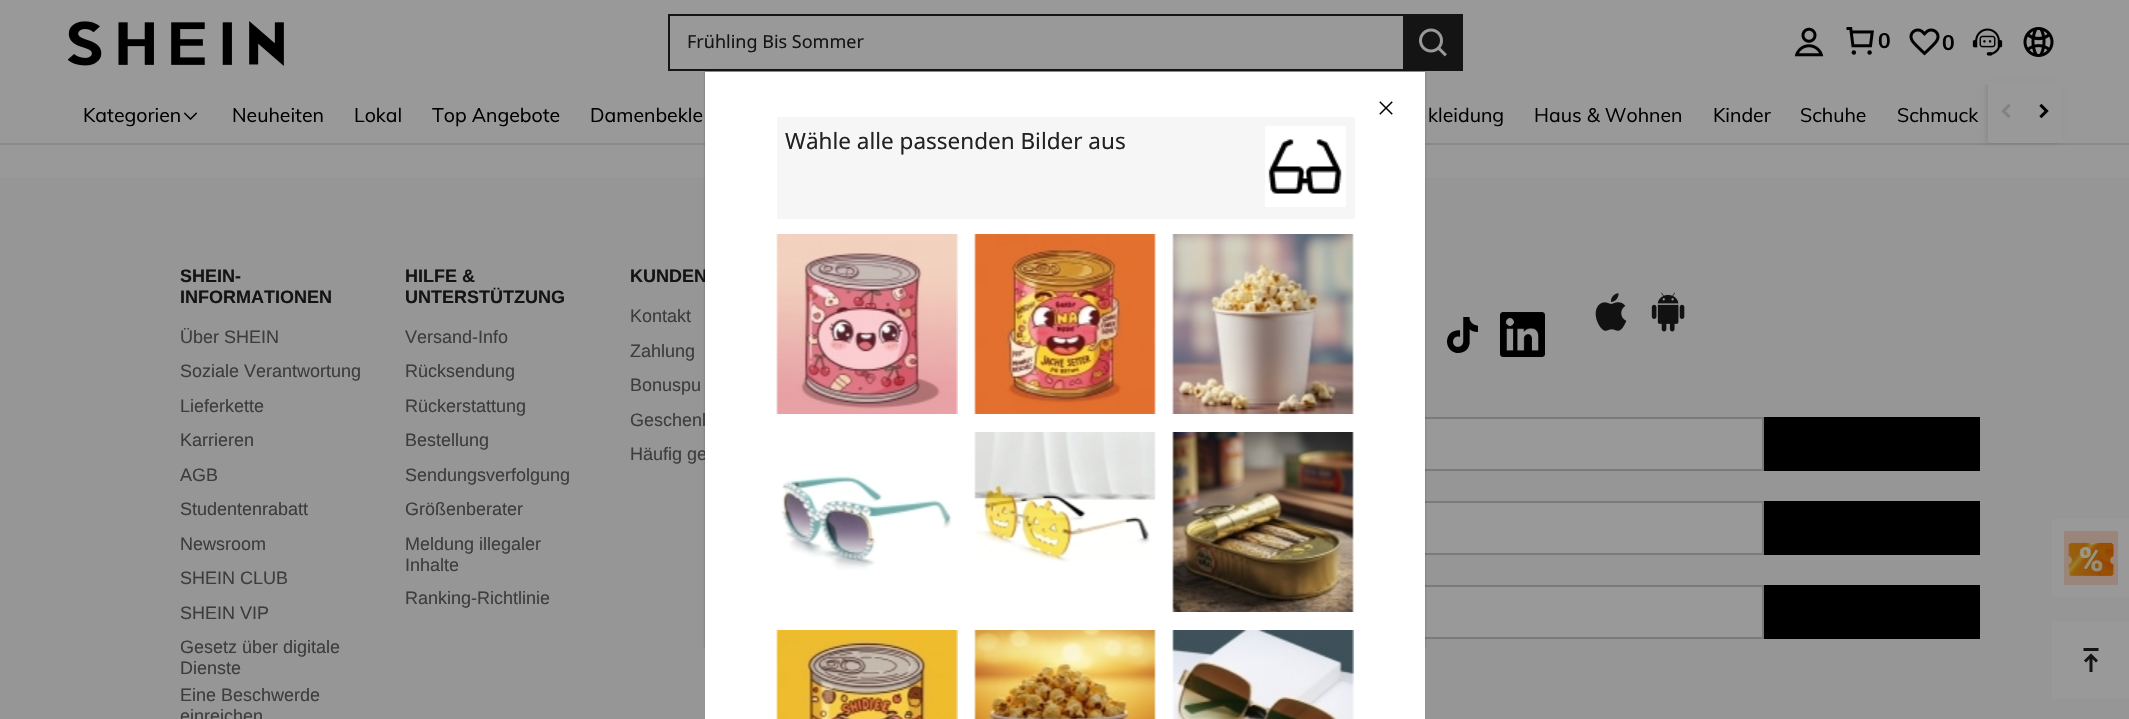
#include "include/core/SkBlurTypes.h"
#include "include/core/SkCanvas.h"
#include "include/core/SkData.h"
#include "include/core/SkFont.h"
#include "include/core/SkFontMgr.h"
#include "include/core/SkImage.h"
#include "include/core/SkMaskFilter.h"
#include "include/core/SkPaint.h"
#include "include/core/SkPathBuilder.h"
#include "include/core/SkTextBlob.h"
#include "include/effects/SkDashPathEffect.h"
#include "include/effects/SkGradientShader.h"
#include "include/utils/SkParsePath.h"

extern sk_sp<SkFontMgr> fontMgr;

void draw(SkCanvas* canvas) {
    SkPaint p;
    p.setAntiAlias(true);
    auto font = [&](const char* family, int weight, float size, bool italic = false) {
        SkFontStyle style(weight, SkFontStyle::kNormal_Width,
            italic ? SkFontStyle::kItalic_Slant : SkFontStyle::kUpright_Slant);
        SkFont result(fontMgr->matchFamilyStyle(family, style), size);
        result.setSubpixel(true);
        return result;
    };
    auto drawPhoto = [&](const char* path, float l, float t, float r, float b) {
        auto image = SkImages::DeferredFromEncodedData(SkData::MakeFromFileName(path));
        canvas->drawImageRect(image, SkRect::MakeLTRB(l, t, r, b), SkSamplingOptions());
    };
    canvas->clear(0xFF999999);
    p.setColor(0xFF898989);
    canvas->drawRect(SkRect::MakeLTRB(0, 143, 2129, 145), p);
    p.setColor(0x14000000);
    p.setMaskFilter(SkMaskFilter::MakeBlur(kNormal_SkBlurStyle, 2));
    canvas->drawRect(SkRect::MakeLTRB(1985, 84, 2060, 143), p);
    p.setMaskFilter(nullptr);
    p.setColor(0xFF999999);
    canvas->drawRect(SkRect::MakeLTRB(1985, 82, 2060, 84), p);
    drawPhoto("media/1.png", 68, 21, 284, 66);
    {
        const struct { float l, t, r, b; SkColor color; } items[] = {
            {668, 14, 1403, 16, 0xFF141414},
            {668, 69, 1403, 71, 0xFF141414},
            {668, 14, 670, 71, 0xFF141414},
        };
        for (auto [l, t, r, b, color] : items) {
            p.setColor(color);
            canvas->drawRect(SkRect::MakeLTRB(l, t, r, b), p);
        }
    }
    auto font1 = font("Noto Sans", 400, 18);
    canvas->drawString("Frühling Bis Sommer", 687, 48, font1, p);
    canvas->drawRect(SkRect::MakeLTRB(1403, 14, 1463, 71), p);
    drawPhoto("media/2.png", 1419, 28, 1447, 57);
    drawPhoto("media/3.png", 1794, 27, 1824, 57);
    drawPhoto("media/4.png", 1846, 27, 1874, 55);
    auto font2 = font("Muli", 700, 21);
    p.setColor(0xFF000000);
    canvas->drawString("0", 1878, 48, font2, p);
    drawPhoto("media/5.png", 1909, 28, 1940, 56);
    canvas->drawString("0", 1942, 50, font2, p);
    drawPhoto("media/6.png", 1972, 28, 2003, 56);
    drawPhoto("media/7.png", 2023, 27, 2054, 57);
    auto font3 = font("Muli", 400, 19.5f);
    canvas->drawString("Kategorien", 83, 122, font3, p);
    drawPhoto("media/8.png", 183, 112, 198, 120);
    {
        const struct { const char* s; float x, y; } items[] = {
            {"Neuheiten", 232, 122},
            {"Lokal", 354, 122},
            {"Top Angebote", 432, 122},
            {"Damenbekle", 590, 122},
            {"kleidung", 1428, 122},
            {"Haus & Wohnen", 1534, 122},
            {"Kinder", 1713, 122},
            {"Schuhe", 1800, 122},
            {"Schmuck", 1897, 122},
        };
        for (auto [s, x, y] : items) {
            canvas->drawString(s, x, y, font3, p);
        }
    }
    p.setColor(0xFF999999);
    canvas->drawRect(SkRect::MakeLTRB(1988, 84, 2062, 143), p);
    drawPhoto("media/9.png", 2001, 104, 2011, 118);
    drawPhoto("media/10.png", 2039, 103, 2049, 119);
    p.setColor(0xFF969696);
    canvas->drawRect(SkRect::MakeLTRB(0, 177, 2129, 719), p);
    auto font4 = font("Liberation Sans", 700, 18);
    p.setColor(0xFF141414);
    canvas->drawString("SHEIN-", 180, 282, font4, p);
    canvas->drawString("INFORMATIONEN", 180, 303, font4, p);
    auto font5 = font("Liberation Sans", 400, 18);
    p.setColor(0xFF3D3D3D);
    {
        const struct { const char* s; float x, y; } items[] = {
            {"Über SHEIN", 180, 343},
            {"Soziale Verantwortung", 180, 377},
            {"Lieferkette", 180, 412},
            {"Karrieren", 180, 446},
            {"AGB", 180, 481},
            {"Studentenrabatt", 180, 515},
            {"Newsroom", 180, 550},
            {"SHEIN CLUB", 180, 584},
            {"SHEIN VIP", 180, 619},
            {"Gesetz über digitale", 180, 653},
            {"Dienste", 180, 674},
            {"Eine Beschwerde", 180, 701},
            {"einreichen", 180, 722},
        };
        for (auto [s, x, y] : items) {
            canvas->drawString(s, x, y, font5, p);
        }
    }
    p.setColor(0xFF141414);
    canvas->drawString("HILFE &", 405, 282, font4, p);
    canvas->drawString("UNTERSTÜTZUNG", 405, 303, font4, p);
    p.setColor(0xFF3D3D3D);
    {
        const struct { const char* s; float x, y; } items[] = {
            {"Versand-Info", 405, 343},
            {"Rücksendung", 405, 377},
            {"Rückerstattung", 405, 412},
            {"Bestellung", 405, 446},
            {"Sendungsverfolgung", 405, 481},
            {"Größenberater", 405, 515},
            {"Meldung illegaler", 405, 550},
            {"Inhalte", 405, 571},
            {"Ranking-Richtlinie", 405, 604},
        };
        for (auto [s, x, y] : items) {
            canvas->drawString(s, x, y, font5, p);
        }
    }
    p.setColor(0xFF141414);
    canvas->drawString("KUNDEN", 630, 282, font4, p);
    p.setColor(0xFF3D3D3D);
    {
        const struct { const char* s; float x, y; } items[] = {
            {"Kontakt", 630, 322},
            {"Zahlung", 630, 357},
            {"Bonuspu", 630, 391},
            {"Geschenk", 630, 426},
            {"Häufig ge", 630, 460},
        };
        for (auto [s, x, y] : items) {
            canvas->drawString(s, x, y, font5, p);
        }
    }
    drawPhoto("media/11.png", 1447, 317, 1478, 353);
    drawPhoto("media/12.png", 1500, 312, 1545, 357);
    drawPhoto("media/13.png", 1595, 293, 1627, 331);
    drawPhoto("media/14.png", 1651, 292, 1685, 332);
    p.setColor(0xFF999999);
    canvas->drawRect(SkRect::MakeLTRB(1425, 419, 1762, 469), p);
    p.setStyle(SkPaint::kStroke_Style);
    p.setStrokeWidth(2);
    p.setColor(0xFF7A7A7A);
    canvas->drawRect(SkRect::MakeLTRB(1081, 418, 1763, 470), p);
    p.setStyle(SkPaint::kFill_Style);
    p.setColor(0xFF000000);
    canvas->drawRect(SkRect::MakeLTRB(1764, 417, 1980, 471), p);
    p.setColor(0xFF999999);
    canvas->drawRect(SkRect::MakeLTRB(1425, 503, 1762, 553), p);
    p.setStyle(SkPaint::kStroke_Style);
    p.setColor(0xFF7A7A7A);
    canvas->drawRect(SkRect::MakeLTRB(1201, 502, 1763, 554), p);
    p.setStyle(SkPaint::kFill_Style);
    p.setColor(0xFF000000);
    canvas->drawRect(SkRect::MakeLTRB(1764, 501, 1980, 555), p);
    p.setColor(0xFF999999);
    canvas->drawRect(SkRect::MakeLTRB(1425, 587, 1762, 637), p);
    p.setStyle(SkPaint::kStroke_Style);
    p.setColor(0xFF7A7A7A);
    canvas->drawRect(SkRect::MakeLTRB(1201, 586, 1763, 638), p);
    p.setStyle(SkPaint::kFill_Style);
    {
        const struct { float l, t, r, b; SkColor color; } items[] = {
            {1764, 585, 1980, 639, 0xFF000000},
            {2052, 519, 2129, 597, 0xFF999999},
            {2064, 531, 2118, 585, 0xFF998579},
        };
        for (auto [l, t, r, b, color] : items) {
            p.setColor(color);
            canvas->drawRect(SkRect::MakeLTRB(l, t, r, b), p);
        }
    }
    drawPhoto("media/15.png", 2068, 542, 2114, 576);
    p.setColor(0xFF999999);
    canvas->drawRect(SkRect::MakeLTRB(2052, 621, 2129, 699), p);
    drawPhoto("media/16.png", 2083, 648, 2099, 672);
    p.setColor(0x4D000000);
    p.setMaskFilter(SkMaskFilter::MakeBlur(kNormal_SkBlurStyle, 1));
    canvas->drawRect(SkRect::MakeLTRB(705, 72, 1425, 648), p);
    p.setMaskFilter(nullptr);
    p.setColor(0xFFFFFFFF);
    canvas->drawRect(SkRect::MakeLTRB(705, 72, 1425, 719), p);
    drawPhoto("media/17.png", 1379, 101, 1393, 115);
    p.setColor(0xFFF6F6F6);
    canvas->drawRect(SkRect::MakeLTRB(777, 117, 1355, 219), p);
    auto font6 = font("Noto Sans", 400, 22.5f);
    p.setColor(0xFF222222);
    canvas->drawString("Wähle alle passenden Bilder aus", 785, 149, font6, p);
    p.setColor(0xFFFFFFFF);
    canvas->drawRect(SkRect::MakeLTRB(1265, 126, 1346, 207), p);
    drawPhoto("media/18.png", 1268, 139, 1342, 194);
    drawPhoto("media/19.png", 776, 234, 958, 414);
    drawPhoto("media/20.png", 974, 234, 1156, 414);
    drawPhoto("media/21.png", 1172, 234, 1354, 414);
    drawPhoto("media/22.png", 781, 475, 952, 570);
    drawPhoto("media/23.png", 974, 432, 1156, 562);
    drawPhoto("media/24.png", 1172, 432, 1354, 612);
    drawPhoto("media/25.png", 776, 630, 958, 719);
    drawPhoto("media/26.png", 974, 630, 1156, 719);
    drawPhoto("media/27.png", 1172, 630, 1354, 719);
}
